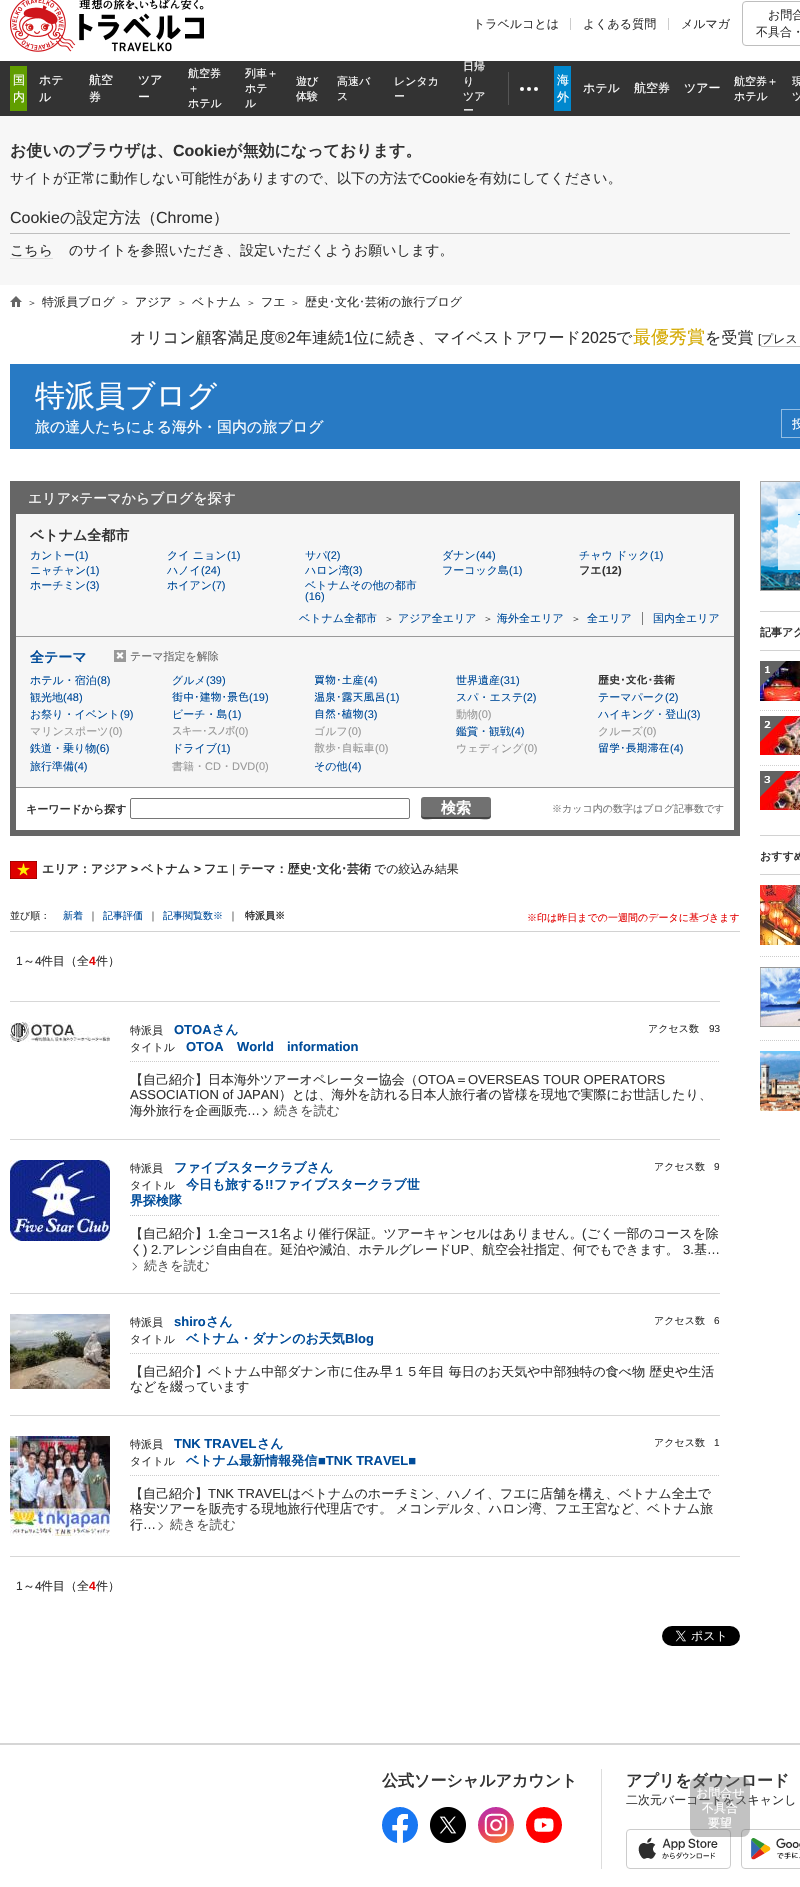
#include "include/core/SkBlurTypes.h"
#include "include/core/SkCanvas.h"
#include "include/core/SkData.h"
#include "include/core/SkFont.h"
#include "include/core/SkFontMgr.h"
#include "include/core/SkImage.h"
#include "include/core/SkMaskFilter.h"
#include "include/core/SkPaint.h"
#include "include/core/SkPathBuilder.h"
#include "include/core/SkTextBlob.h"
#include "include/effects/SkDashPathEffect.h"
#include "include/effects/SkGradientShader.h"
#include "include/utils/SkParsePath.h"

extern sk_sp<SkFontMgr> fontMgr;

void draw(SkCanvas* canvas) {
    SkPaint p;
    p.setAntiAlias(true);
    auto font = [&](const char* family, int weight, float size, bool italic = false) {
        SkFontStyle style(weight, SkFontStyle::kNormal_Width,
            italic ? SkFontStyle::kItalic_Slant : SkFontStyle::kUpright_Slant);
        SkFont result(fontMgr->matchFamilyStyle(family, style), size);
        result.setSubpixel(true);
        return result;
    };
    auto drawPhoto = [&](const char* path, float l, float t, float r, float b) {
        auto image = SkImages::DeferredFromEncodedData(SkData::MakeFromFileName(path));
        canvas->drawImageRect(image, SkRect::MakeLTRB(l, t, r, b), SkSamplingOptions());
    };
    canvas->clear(0xFFFFFFFF);
    drawPhoto("media/1.png", 10, 0, 204, 52);
    auto font1 = font("WenQuanYi Zen Hei", 500, 12);
    p.setColor(0xFF333333);
    canvas->drawString("トラベルコとは", 473, 28, font1, p);
    p.setColor(0xFFCCCCCC);
    canvas->drawRect(SkRect::MakeLTRB(570, 18, 571, 30), p);
    p.setColor(0xFF333333);
    canvas->drawString("よくある質問", 583, 28, font1, p);
    p.setColor(0xFFCCCCCC);
    canvas->drawRect(SkRect::MakeLTRB(668, 18, 669, 30), p);
    p.setColor(0xFF333333);
    canvas->drawString("メルマガ", 681, 28, font1, p);
    p.setStyle(SkPaint::kStroke_Style);
    p.setStrokeWidth(1);
    p.setColor(0xFFBEBEBE);
    canvas->drawRoundRect(SkRect::MakeLTRB(742.5f, 1.5f, 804.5f, 45.5f), 3.5f, 3.5f, p);
    p.setStyle(SkPaint::kFill_Style);
    p.setColor(0xFF333333);
    canvas->drawString("お問合", 768, 19, font1, p);
    canvas->drawString("不具合・", 756, 36, font1, p);
    canvas->drawRect(SkRect::MakeLTRB(0, 61, 800, 116), p);
    p.setColor(0xFF619E00);
    canvas->drawRect(SkRect::MakeLTRB(10, 66, 27, 111), p);
    p.setColor(0xFFFFFFFF);
    {
        const struct { const char* s; float x, y; } items[] = {
            {"国", 13, 84},
            {"内", 13, 101},
            {"ホテ", 39, 84},
            {"ル", 39, 101},
            {"航空", 89, 84},
            {"券", 89, 101},
            {"ツア", 138, 84},
            {"ー", 138, 101},
        };
        for (auto [s, x, y] : items) {
            canvas->drawString(s, x, y, font1, p);
        }
    }
    auto font2 = font("WenQuanYi Zen Hei", 500, 11);
    {
        const struct { const char* s; float x, y; } items[] = {
            {"航空券", 188, 77},
            {"＋", 188, 92},
            {"ホテル", 188, 107},
            {"列車＋", 245, 77},
            {"ホテ", 245, 92},
            {"ル", 245, 107},
            {"遊び", 296, 85},
            {"体験", 296, 100},
            {"高速バ", 337, 85},
            {"ス", 337, 100},
            {"レンタカ", 394, 85},
            {"ー", 394, 100},
            {"日帰", 463, 70},
            {"り", 463, 85},
            {"ツア", 463, 100},
            {"ー", 463, 114},
        };
        for (auto [s, x, y] : items) {
            canvas->drawString(s, x, y, font2, p);
        }
    }
    p.setColor(0xFF555555);
    canvas->drawRect(SkRect::MakeLTRB(508, 72, 509, 105), p);
    p.setColor(0xFFFFFFFF);
    canvas->drawCircle(522, 89, 2, p);
    canvas->drawCircle(529, 89, 2, p);
    canvas->drawCircle(536, 89, 2, p);
    p.setColor(0xFF0088CE);
    canvas->drawRect(SkRect::MakeLTRB(554, 66, 571, 111), p);
    p.setColor(0xFFFFFFFF);
    {
        const struct { const char* s; float x, y; } items[] = {
            {"海", 557, 84},
            {"外", 557, 101},
            {"ホテル", 583, 92},
            {"航空券", 634, 92},
            {"ツアー", 684, 92},
        };
        for (auto [s, x, y] : items) {
            canvas->drawString(s, x, y, font1, p);
        }
    }
    {
        const struct { const char* s; float x, y; } items[] = {
            {"航空券＋", 734, 85},
            {"ホテル", 734, 100},
            {"現", 792, 85},
            {"ツ", 792, 100},
        };
        for (auto [s, x, y] : items) {
            canvas->drawString(s, x, y, font2, p);
        }
    }
    p.setColor(0xFFF7F7F7);
    canvas->drawRect(SkRect::MakeLTRB(0, 116, 800, 285), p);
    auto font3 = font("WenQuanYi Zen Hei", 700, 16);
    p.setColor(0xFF333333);
    canvas->drawString("お使いのブラウザは、", 10, 156, font3, p);
    auto font4 = font("Liberation Sans", 700, 16);
    canvas->drawString("Cookie", 173, 156, font4, p);
    canvas->drawString("が無効になっております。", 226, 156, font3, p);
    auto font5 = font("WenQuanYi Zen Hei", 500, 14);
    canvas->drawString("サイトが正常に動作しない可能性がありますので、以下の方法で", 10, 183, font5, p);
    auto font6 = font("Liberation Sans", 400, 14);
    canvas->drawString("Cookie", 422, 183, font6, p);
    canvas->drawString("を有効にしてください。", 465, 183, font5, p);
    p.setColor(0xFFBEBEBE);
    canvas->drawRect(SkRect::MakeLTRB(10, 233, 790, 234), p);
    auto font7 = font("Liberation Sans", 400, 16);
    p.setColor(0xFF333333);
    canvas->drawString("Cookie", 10, 223, font7, p);
    auto font8 = font("WenQuanYi Zen Hei", 500, 16);
    canvas->drawString("の設定方法（", 60, 223, font8, p);
    canvas->drawString("Chrome", 156, 223, font7, p);
    canvas->drawString("）", 213, 223, font8, p);
    canvas->drawString("こちら", 10, 255, font5, p);
    p.setColor(0xFFDDDDDD);
    canvas->drawRect(SkRect::MakeLTRB(10, 258, 53, 259), p);
    p.setColor(0xFF333333);
    canvas->drawString("のサイトを参照いただき、設定いただくようお願いします。", 69, 255, font5, p);
    p.setColor(0xFF666666);
    canvas->drawPath(SkPathBuilder().moveTo(22, 302).lineTo(10, 302).lineTo(16, 296).close().detach(), p);
    canvas->drawRect(SkRect::MakeLTRB(17, 302, 20, 307), p);
    canvas->drawRect(SkRect::MakeLTRB(12, 302, 15, 307), p);
    auto font9 = font("WenQuanYi Zen Hei", 500, 10);
    p.setColor(0xFF333333);
    canvas->drawString("＞", 27, 306, font9, p);
    canvas->drawString("特派員ブログ", 42, 306, font1, p);
    canvas->drawString("＞", 120, 306, font9, p);
    canvas->drawString("アジア", 135, 306, font1, p);
    canvas->drawString("＞", 177, 306, font9, p);
    canvas->drawString("ベトナム", 192, 306, font1, p);
    canvas->drawString("＞", 246, 306, font9, p);
    canvas->drawString("フエ", 261, 306, font1, p);
    canvas->drawString("＞", 290, 306, font9, p);
    canvas->drawString("歴史", 305, 306, font1, p);
    auto font10 = font("IPAPGothic", 400, 12);
    canvas->drawString("･", 329, 306, font10, p);
    canvas->drawString("文化", 335, 306, font1, p);
    canvas->drawString("･", 359, 306, font10, p);
    canvas->drawString("芸術の旅行ブログ", 365, 306, font1, p);
    canvas->drawString("オリコン顧客満足度", 130, 343, font8, p);
    canvas->drawString("®2", 275, 343, font7, p);
    canvas->drawString("年連続", 296, 343, font8, p);
    canvas->drawString("1", 344, 343, font7, p);
    canvas->drawString("位に続き、マイベストアワード", 353, 343, font8, p);
    canvas->drawString("2025", 581, 343, font7, p);
    canvas->drawString("で", 616, 343, font8, p);
    auto font11 = font("WenQuanYi Zen Hei", 500, 18);
    p.setColor(0xFFD4A900);
    canvas->drawString("最優秀賞", 633, 343, font11, p);
    p.setColor(0xFF333333);
    canvas->drawString("を受賞", 705, 343, font8, p);
    auto font12 = font("Liberation Sans", 400, 12);
    canvas->drawString("[", 758, 343, font12, p);
    p.setColor(0xFFBFBFBF);
    canvas->drawRect(SkRect::MakeLTRB(761, 346, 800, 347), p);
    p.setColor(0xFF333333);
    canvas->drawString("プレス", 761, 343, font1, p);
    p.setColor(0xFF287AC4);
    canvas->drawRect(SkRect::MakeLTRB(10, 364, 800, 449), p);
    auto font13 = font("WenQuanYi Zen Hei", 500, 30);
    p.setColor(0xFFFFFFFF);
    canvas->drawString("特派員ブログ", 35, 406, font13, p);
    auto font14 = font("WenQuanYi Zen Hei", 500, 15);
    canvas->drawString("旅の達人たちによる海外・国内の旅ブログ", 35, 432, font14, p);
    p.setStyle(SkPaint::kStroke_Style);
    p.setColor(0xFF94BDE2);
    canvas->drawRect(SkRect::MakeLTRB(781.5f, 409.5f, 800.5f, 437.5f), p);
    p.setStyle(SkPaint::kFill_Style);
    p.setColor(0xFFFFFFFF);
    canvas->drawString("投", 792, 428, font1, p);
    p.setColor(0xFF666666);
    canvas->drawRect(SkRect::MakeLTRB(10, 481, 740, 508), p);
    p.setColor(0xFFFFFFFF);
    canvas->drawString("エリア", 28, 503, font5, p);
    canvas->drawString("×", 71, 503, font6, p);
    canvas->drawString("テーマからブログを探す", 79, 503, font5, p);
    p.setStyle(SkPaint::kStroke_Style);
    p.setStrokeWidth(6);
    p.setColor(0xFF666666);
    canvas->drawRect(SkRect::MakeLTRB(13, 511, 737, 833), p);
    p.setStyle(SkPaint::kFill_Style);
    p.setColor(0xFFF6F6F6);
    canvas->drawRect(SkRect::MakeLTRB(16, 514, 734, 636), p);
    p.setColor(0xFF999999);
    canvas->drawRect(SkRect::MakeLTRB(16, 636, 734, 637), p);
    auto font15 = font("WenQuanYi Zen Hei", 700, 14);
    p.setColor(0xFF333333);
    canvas->drawString("ベトナム全都市", 30, 540, font15, p);
    p.setColor(0xFF004C9A);
    canvas->drawString("カントー", 30, 559, font2, p);
    auto font16 = font("Liberation Sans", 400, 11);
    canvas->drawString("(1)", 75, 559, font16, p);
    canvas->drawString("クイ ニョン", 167, 559, font2, p);
    canvas->drawString("(1)", 227, 559, font16, p);
    canvas->drawString("サパ", 305, 559, font2, p);
    canvas->drawString("(2)", 327, 559, font16, p);
    canvas->drawString("ダナン", 442, 559, font2, p);
    canvas->drawString("(44)", 476, 559, font16, p);
    canvas->drawString("チャウ ドック", 579, 559, font2, p);
    canvas->drawString("(1)", 650, 559, font16, p);
    canvas->drawString("ニャチャン", 30, 574, font2, p);
    canvas->drawString("(1)", 86, 574, font16, p);
    canvas->drawString("ハノイ", 167, 574, font2, p);
    canvas->drawString("(24)", 201, 574, font16, p);
    canvas->drawString("ハロン湾", 305, 574, font2, p);
    canvas->drawString("(3)", 349, 574, font16, p);
    canvas->drawString("フーコック島", 442, 574, font2, p);
    canvas->drawString("(1)", 509, 574, font16, p);
    auto font17 = font("WenQuanYi Zen Hei", 700, 11);
    p.setColor(0xFF333333);
    canvas->drawString("フエ", 579, 574, font17, p);
    auto font18 = font("Liberation Sans", 700, 11);
    canvas->drawString("(12)", 602, 574, font18, p);
    p.setColor(0xFF004C9A);
    canvas->drawString("ホーチミン", 30, 589, font2, p);
    canvas->drawString("(3)", 86, 589, font16, p);
    canvas->drawString("ホイアン", 167, 589, font2, p);
    canvas->drawString("(7)", 212, 589, font16, p);
    canvas->drawString("ベトナムその他の都市", 305, 589, font2, p);
    canvas->drawString("(16)", 305, 600, font16, p);
    canvas->drawString("ベトナム全都市", 299, 622, font2, p);
    p.setColor(0xFF333333);
    canvas->drawString("＞", 384, 622, font9, p);
    p.setColor(0xFF004C9A);
    canvas->drawString("アジア全エリア", 398, 622, font2, p);
    p.setColor(0xFF333333);
    canvas->drawString("＞", 483, 622, font9, p);
    p.setColor(0xFF004C9A);
    canvas->drawString("海外全エリア", 497, 622, font2, p);
    p.setColor(0xFF333333);
    canvas->drawString("＞", 571, 622, font9, p);
    p.setColor(0xFF004C9A);
    canvas->drawString("全エリア", 587, 622, font2, p);
    p.setColor(0xFF7D7D7D);
    canvas->drawRect(SkRect::MakeLTRB(642, 612, 643, 625), p);
    p.setColor(0xFF004C9A);
    canvas->drawString("国内全エリア", 653, 622, font2, p);
    p.setColor(0xFFF6F6F6);
    canvas->drawRect(SkRect::MakeLTRB(16, 637, 734, 787), p);
    p.setColor(0xFF999999);
    canvas->drawRect(SkRect::MakeLTRB(16, 787, 734, 788), p);
    p.setColor(0xFF004C9A);
    canvas->drawString("全テーマ", 30, 662, font15, p);
    canvas->drawString("ホテル・宿泊", 30, 684, font2, p);
    canvas->drawString("(8)", 97, 684, font16, p);
    canvas->drawString("グルメ", 172, 684, font2, p);
    canvas->drawString("(39)", 206, 684, font16, p);
    auto font19 = font("IPAPGothic", 400, 11);
    canvas->drawString("買物･土産", 314, 684, font19, p);
    canvas->drawString("(4)", 364, 684, font16, p);
    canvas->drawString("世界遺産", 456, 684, font2, p);
    canvas->drawString("(31)", 500, 684, font16, p);
    auto font20 = font("IPAPGothic", 700, 11);
    p.setColor(0xFF333333);
    canvas->drawString("歴史･文化･芸術", 598, 684, font20, p);
    p.setColor(0xFF004C9A);
    canvas->drawString("観光地", 30, 701, font2, p);
    canvas->drawString("(48)", 63, 701, font16, p);
    canvas->drawString("街中･建物･景色", 172, 701, font19, p);
    canvas->drawString("(19)", 249, 701, font16, p);
    canvas->drawString("温泉･露天風呂", 314, 701, font19, p);
    canvas->drawString("(1)", 386, 701, font16, p);
    canvas->drawString("スパ・エステ", 456, 701, font2, p);
    canvas->drawString("(2)", 523, 701, font16, p);
    canvas->drawString("テーマパーク", 598, 701, font2, p);
    canvas->drawString("(2)", 665, 701, font16, p);
    canvas->drawString("お祭り・イベント", 30, 718, font2, p);
    canvas->drawString("(9)", 120, 718, font16, p);
    canvas->drawString("ビーチ・島", 172, 718, font2, p);
    canvas->drawString("(1)", 228, 718, font16, p);
    canvas->drawString("自然･植物", 314, 718, font19, p);
    canvas->drawString("(3)", 364, 718, font16, p);
    p.setColor(0xFF999999);
    canvas->drawString("動物", 456, 718, font2, p);
    canvas->drawString("(0)", 478, 718, font16, p);
    p.setColor(0xFF004C9A);
    canvas->drawString("ハイキング・登山", 598, 718, font2, p);
    canvas->drawString("(3)", 687, 718, font16, p);
    p.setColor(0xFF999999);
    canvas->drawString("マリンスポーツ", 30, 735, font2, p);
    canvas->drawString("(0)", 109, 735, font16, p);
    canvas->drawString("スキー･スノボ", 172, 735, font19, p);
    canvas->drawString("(0)", 235, 735, font16, p);
    canvas->drawString("ゴルフ", 314, 735, font2, p);
    canvas->drawString("(0)", 348, 735, font16, p);
    p.setColor(0xFF004C9A);
    canvas->drawString("鑑賞・観戦", 456, 735, font2, p);
    canvas->drawString("(4)", 511, 735, font16, p);
    p.setColor(0xFF999999);
    canvas->drawString("クルーズ", 598, 735, font2, p);
    canvas->drawString("(0)", 643, 735, font16, p);
    p.setColor(0xFF004C9A);
    canvas->drawString("鉄道・乗り物", 30, 752, font2, p);
    canvas->drawString("(6)", 96, 752, font16, p);
    canvas->drawString("ドライブ", 172, 752, font2, p);
    canvas->drawString("(1)", 217, 752, font16, p);
    p.setColor(0xFF999999);
    canvas->drawString("散歩･自転車", 314, 752, font19, p);
    canvas->drawString("(0)", 375, 752, font16, p);
    canvas->drawString("ウェディング", 456, 752, font2, p);
    canvas->drawString("(0)", 524, 752, font16, p);
    p.setColor(0xFF004C9A);
    canvas->drawString("留学･長期滞在", 598, 752, font19, p);
    canvas->drawString("(4)", 670, 752, font16, p);
    canvas->drawString("旅行準備", 30, 770, font2, p);
    canvas->drawString("(4)", 74, 770, font16, p);
    p.setColor(0xFF999999);
    canvas->drawString("書籍・", 172, 770, font2, p);
    canvas->drawString("CD", 205, 770, font16, p);
    canvas->drawString("・", 221, 770, font2, p);
    canvas->drawString("DVD(0)", 232, 770, font16, p);
    p.setColor(0xFF004C9A);
    canvas->drawString("その他", 314, 770, font2, p);
    canvas->drawString("(4)", 348, 770, font16, p);
    p.setColor(0xFF999999);
    canvas->drawRect(SkRect::MakeLTRB(114, 650, 126, 662), p);
    p.setColor(0xFFFFFFFF);
    canvas->drawPath(SkPathBuilder().moveTo(118, 652).lineTo(123.5f, 657.5f).lineTo(122, 659).lineTo(116.5f, 653.5f).close().detach(), p);
    p.setColor(0xFF666666);
    canvas->drawString("テーマ指定を解除", 130, 660, font2, p);
    p.setColor(0xFFFFFFFF);
    canvas->drawPath(SkPathBuilder().moveTo(122, 652).lineTo(123.5f, 653.5f).lineTo(118, 659).lineTo(116.5f, 657.5f).close().detach(), p);
    p.setColor(0xFF333333);
    canvas->drawString("キーワードから探す", 26, 813, font17, p);
    p.setStyle(SkPaint::kStroke_Style);
    p.setStrokeWidth(1);
    p.setColor(0xFF767676);
    canvas->drawRoundRect(SkRect::MakeLTRB(130.5f, 798.5f, 409.5f, 818.5f), 1.5f, 1.5f, p);
    p.setStyle(SkPaint::kFill_Style);
    p.setColor(0xFF717171);
    canvas->drawRoundRect(SkRect::MakeLTRB(421, 797, 491, 819), 3, 3, p);
    p.setColor(0x66000000);
    canvas->drawPath(SkPathBuilder().moveTo(421, 814).cubicTo(421, 822, 427, 819, 435, 819).lineTo(477, 819).cubicTo(485, 819, 491, 822, 491, 814).cubicTo(491, 816, 490, 817, 488, 817).lineTo(424, 817).cubicTo(422, 817, 421, 816, 421, 814).close().detach(), p);
    auto font21 = font("WenQuanYi Zen Hei", 700, 15);
    p.setColor(0xFFFFFFFF);
    canvas->drawString("検索", 441, 813, font21, p);
    p.setColor(0xFF777777);
    canvas->drawString("※カッコ内の数字はブログ記事数です", 552, 812, font9, p);
    drawPhoto("media/2.png", 10, 861, 37, 879);
    auto font22 = font("WenQuanYi Zen Hei", 700, 12);
    p.setColor(0xFF333333);
    canvas->drawString("エリア：アジア", 42, 873, font22, p);
    auto font23 = font("Liberation Sans", 700, 12);
    canvas->drawString(">", 131, 873, font23, p);
    canvas->drawString("ベトナム", 141, 873, font22, p);
    canvas->drawString(">", 194, 873, font23, p);
    canvas->drawString("フエ", 204, 873, font22, p);
    canvas->drawString("|", 232, 873, font12, p);
    canvas->drawString("テーマ：歴史", 239, 873, font22, p);
    auto font24 = font("IPAPGothic", 700, 12);
    canvas->drawString("･", 311, 873, font24, p);
    canvas->drawString("文化", 317, 873, font22, p);
    canvas->drawString("･", 341, 873, font24, p);
    canvas->drawString("芸術", 347, 873, font22, p);
    canvas->drawString("での絞込み結果", 374, 873, font1, p);
    p.setColor(0xFFD2D2D2);
    canvas->drawRect(SkRect::MakeLTRB(10, 931, 740, 932), p);
    p.setColor(0xFF333333);
    canvas->drawString("並び順：", 10, 919, font9, p);
    p.setColor(0xFF004C9A);
    canvas->drawString("新着", 63, 919, font9, p);
    p.setColor(0xFF333333);
    canvas->drawString("｜", 88, 919, font9, p);
    p.setColor(0xFF004C9A);
    canvas->drawString("記事評価", 103, 919, font9, p);
    p.setColor(0xFF333333);
    canvas->drawString("｜", 148, 919, font9, p);
    p.setColor(0xFF004C9A);
    canvas->drawString("記事閲覧数※", 163, 919, font9, p);
    p.setColor(0xFF333333);
    canvas->drawString("｜", 228, 919, font9, p);
    auto font25 = font("WenQuanYi Zen Hei", 700, 10);
    canvas->drawString("特派員※", 245, 919, font25, p);
    p.setColor(0xFFE30707);
    canvas->drawString("※印は昨日までの一週間のデータに基づきます", 527, 921, font9, p);
    p.setColor(0xFF333333);
    canvas->drawString("1", 16, 965, font12, p);
    canvas->drawString("～", 23, 965, font1, p);
    canvas->drawString("4", 35, 965, font12, p);
    canvas->drawString("件目（全", 41, 965, font1, p);
    p.setColor(0xFFE30707);
    canvas->drawString("4", 89, 965, font23, p);
    p.setColor(0xFF333333);
    canvas->drawString("件）", 96, 965, font1, p);
    p.setColor(0xFFD7D7D7);
    canvas->drawRect(SkRect::MakeLTRB(10, 1001, 720, 1002), p);
    drawPhoto("media/3.png", 10, 1022, 110, 1042);
    p.setColor(0xFF333333);
    canvas->drawString("特派員", 130, 1034, font2, p);
    auto font26 = font("Liberation Sans", 700, 13);
    p.setColor(0xFF004C9A);
    canvas->drawString("OTOA", 174, 1034, font26, p);
    auto font27 = font("WenQuanYi Zen Hei", 700, 13);
    canvas->drawString("さん", 212, 1034, font27, p);
    p.setColor(0xFF333333);
    canvas->drawString("タイトル", 130, 1051, font2, p);
    p.setColor(0xFF004C9A);
    {
        const struct { const char* s; float x, y; } items[] = {
            {"OTOA", 186, 1051},
            {"World", 237, 1051},
            {"information", 287, 1051},
        };
        for (auto [s, x, y] : items) {
            canvas->drawString(s, x, y, font26, p);
        }
    }
    p.setColor(0xFF333333);
    canvas->drawString("アクセス数", 648, 1032, font9, p);
    auto font28 = font("Liberation Sans", 400, 10);
    canvas->drawString("93", 709, 1032, font28, p);
    p.setStyle(SkPaint::kStroke_Style);
    p.setColor(0xFFCCCCCC);
    p.setPathEffect(SkDashPathEffect::Make({{1, 1}}, 0));
    canvas->drawPath(SkPathBuilder().moveTo(130, 1061.5f).lineTo(720, 1061.5f).detach(), p);
    p.setPathEffect(nullptr);
    auto font29 = font("WenQuanYi Zen Hei", 500, 13);
    p.setStyle(SkPaint::kFill_Style);
    p.setColor(0xFF333333);
    canvas->drawString("【自己紹介】日本海外ツアーオペレーター協会（", 130, 1084, font29, p);
    auto font30 = font("Liberation Sans", 400, 13);
    canvas->drawString("OTOA", 418, 1084, font30, p);
    canvas->drawString("＝", 455, 1084, font29, p);
    canvas->drawString("OVERSEAS TOUR OPERATORS", 468, 1084, font30, p);
    canvas->drawString("ASSOCIATION of JAPAN", 130, 1099, font30, p);
    canvas->drawString("）とは、海外を訪れる日本人旅行者の皆様を現地で実際にお世話したり、", 279, 1099, font29, p);
    canvas->drawString("海外旅行を企画販売", 130, 1115, font29, p);
    canvas->drawString("…", 247, 1115, font30, p);
    p.setColor(0xFF555555);
    canvas->drawPath(SkPathBuilder().moveTo(262.5f, 1108.5f).lineTo(263.5f, 1108).lineTo(267.5f, 1112).lineTo(267, 1113).close().detach(), p);
    canvas->drawPath(SkPathBuilder().moveTo(262.5f, 1115.5f).lineTo(267, 1111.5f).lineTo(267.5f, 1112).lineTo(263.5f, 1116.5f).close().detach(), p);
    canvas->drawString("続きを読む", 274, 1115, font29, p);
    p.setColor(0xFFD7D7D7);
    canvas->drawRect(SkRect::MakeLTRB(10, 1139, 720, 1140), p);
    drawPhoto("media/4.png", 10, 1160, 110, 1241);
    p.setColor(0xFF333333);
    canvas->drawString("特派員", 130, 1172, font2, p);
    p.setColor(0xFF004C9A);
    canvas->drawString("ファイブスタークラブさん", 174, 1172, font27, p);
    p.setColor(0xFF333333);
    canvas->drawString("タイトル", 130, 1189, font2, p);
    p.setColor(0xFF004C9A);
    canvas->drawString("今日も旅する", 186, 1189, font27, p);
    canvas->drawString("!!", 265, 1189, font26, p);
    canvas->drawString("ファイブスタークラブ世", 274, 1189, font27, p);
    canvas->drawString("界探検隊", 130, 1205, font27, p);
    p.setColor(0xFF333333);
    canvas->drawString("アクセス数", 654, 1170, font9, p);
    canvas->drawString("9", 714, 1170, font28, p);
    p.setStyle(SkPaint::kStroke_Style);
    p.setColor(0xFFCCCCCC);
    p.setPathEffect(SkDashPathEffect::Make({{1, 1}}, 0));
    canvas->drawPath(SkPathBuilder().moveTo(130, 1215.5f).lineTo(720, 1215.5f).detach(), p);
    p.setPathEffect(nullptr);
    p.setStyle(SkPaint::kFill_Style);
    p.setColor(0xFF333333);
    canvas->drawString("【自己紹介】", 130, 1238, font29, p);
    canvas->drawString("1.", 208, 1238, font30, p);
    canvas->drawString("全コース", 219, 1238, font29, p);
    canvas->drawString("1", 271, 1238, font30, p);
    canvas->drawString("名より催行保証。ツアーキャンセルはありません。", 279, 1238, font29, p);
    canvas->drawString("(", 582, 1238, font30, p);
    canvas->drawString("ごく一部のコースを除", 587, 1238, font29, p);
    canvas->drawString("く", 130, 1254, font29, p);
    canvas->drawString(") 2.", 143, 1254, font30, p);
    canvas->drawString("アレンジ自由自在。延泊や減泊、ホテルグレード", 162, 1254, font29, p);
    canvas->drawString("UP", 451, 1254, font30, p);
    canvas->drawString("、航空会社指定、何でもできます。", 469, 1254, font29, p);
    canvas->drawString("3.", 683, 1254, font30, p);
    canvas->drawString("基", 694, 1254, font29, p);
    canvas->drawString("…", 707, 1254, font30, p);
    p.setColor(0xFF555555);
    canvas->drawPath(SkPathBuilder().moveTo(132.5f, 1263).lineTo(133, 1262.5f).lineTo(137, 1266.5f).lineTo(136.5f, 1267).close().detach(), p);
    canvas->drawPath(SkPathBuilder().moveTo(132.5f, 1270).lineTo(136.5f, 1266).lineTo(137, 1266.5f).lineTo(133, 1270.5f).close().detach(), p);
    canvas->drawString("続きを読む", 144, 1270, font29, p);
    p.setColor(0xFFD7D7D7);
    canvas->drawRect(SkRect::MakeLTRB(10, 1293, 720, 1294), p);
    drawPhoto("media/5.png", 10, 1314, 110, 1389);
    p.setColor(0xFF333333);
    canvas->drawString("特派員", 130, 1326, font2, p);
    p.setColor(0xFF004C9A);
    canvas->drawString("shiro", 174, 1326, font26, p);
    canvas->drawString("さん", 206, 1326, font27, p);
    p.setColor(0xFF333333);
    canvas->drawString("タイトル", 130, 1343, font2, p);
    p.setColor(0xFF004C9A);
    canvas->drawString("ベトナム・ダナンのお天気", 186, 1343, font27, p);
    canvas->drawString("Blog", 345, 1343, font26, p);
    p.setColor(0xFF333333);
    canvas->drawString("アクセス数", 654, 1324, font9, p);
    canvas->drawString("6", 714, 1324, font28, p);
    p.setStyle(SkPaint::kStroke_Style);
    p.setColor(0xFFCCCCCC);
    p.setPathEffect(SkDashPathEffect::Make({{1, 1}}, 0));
    canvas->drawPath(SkPathBuilder().moveTo(130, 1353.5f).lineTo(720, 1353.5f).detach(), p);
    p.setPathEffect(nullptr);
    p.setStyle(SkPaint::kFill_Style);
    p.setColor(0xFF333333);
    canvas->drawString("【自己紹介】ベトナム中部ダナン市に住み早１５年目 毎日のお天気や中部独特の食べ物 歴史や生活", 130, 1376, font29, p);
    canvas->drawString("などを綴っています", 130, 1391, font29, p);
    p.setColor(0xFFD7D7D7);
    canvas->drawRect(SkRect::MakeLTRB(10, 1415, 720, 1416), p);
    drawPhoto("media/6.png", 10, 1436, 110, 1536);
    p.setColor(0xFF333333);
    canvas->drawString("特派員", 130, 1448, font2, p);
    p.setColor(0xFF004C9A);
    canvas->drawString("TNK TRAVEL", 174, 1448, font26, p);
    canvas->drawString("さん", 257, 1448, font27, p);
    p.setColor(0xFF333333);
    canvas->drawString("タイトル", 130, 1465, font2, p);
    p.setColor(0xFF004C9A);
    canvas->drawString("ベトナム最新情報発信", 186, 1465, font27, p);
    canvas->drawString("■TNK TRAVEL■", 318, 1465, font26, p);
    p.setColor(0xFF333333);
    canvas->drawString("アクセス数", 654, 1446, font9, p);
    canvas->drawString("1", 714, 1446, font28, p);
    p.setStyle(SkPaint::kStroke_Style);
    p.setColor(0xFFCCCCCC);
    p.setPathEffect(SkDashPathEffect::Make({{1, 1}}, 0));
    canvas->drawPath(SkPathBuilder().moveTo(130, 1475.5f).lineTo(720, 1475.5f).detach(), p);
    p.setPathEffect(nullptr);
    p.setStyle(SkPaint::kFill_Style);
    p.setColor(0xFF333333);
    canvas->drawString("【自己紹介】", 130, 1498, font29, p);
    canvas->drawString("TNK TRAVEL", 208, 1498, font30, p);
    {
        const struct { const char* s; float x, y; } items[] = {
            {"はベトナムのホーチミン、ハノイ、フエに店舗を構え、ベトナム全土で", 288, 1498},
            {"格安ツアーを販売する現地旅行代理店です。 メコンデルタ、ハロン湾、フエ王宮など、ベトナム旅", 130, 1513},
            {"行", 130, 1529},
        };
        for (auto [s, x, y] : items) {
            canvas->drawString(s, x, y, font29, p);
        }
    }
    canvas->drawString("…", 143, 1529, font30, p);
    p.setColor(0xFF555555);
    canvas->drawPath(SkPathBuilder().moveTo(158.5f, 1522.5f).lineTo(159, 1522).lineTo(163, 1526).lineTo(162.5f, 1526.5f).close().detach(), p);
    canvas->drawPath(SkPathBuilder().moveTo(158.5f, 1529.5f).lineTo(162.5f, 1525.5f).lineTo(163, 1526).lineTo(159, 1530.5f).close().detach(), p);
    canvas->drawString("続きを読む", 170, 1529, font29, p);
    p.setColor(0xFFD7D7D7);
    canvas->drawRect(SkRect::MakeLTRB(10, 1556, 740, 1557), p);
    p.setColor(0xFF333333);
    canvas->drawString("1", 16, 1590, font12, p);
    canvas->drawString("～", 23, 1590, font1, p);
    canvas->drawString("4", 35, 1590, font12, p);
    canvas->drawString("件目（全", 41, 1590, font1, p);
    p.setColor(0xFFE30707);
    canvas->drawString("4", 89, 1590, font23, p);
    p.setColor(0xFF333333);
    canvas->drawString("件）", 96, 1590, font1, p);
    drawPhoto("media/7.png", 662, 1626, 740, 1646);
    drawPhoto("media/8.png", 760, 481, 800, 591);
    p.setColor(0xFFD2D2D2);
    canvas->drawRect(SkRect::MakeLTRB(760, 611, 800, 612), p);
    canvas->drawRect(SkRect::MakeLTRB(760, 650, 800, 651), p);
    p.setColor(0xFF333333);
    canvas->drawString("記事アク", 760, 636, font17, p);
    p.setStyle(SkPaint::kStroke_Style);
    p.setColor(0xFFD0D0D0);
    p.setPathEffect(SkDashPathEffect::Make({{1, 1}}, 0));
    canvas->drawPath(SkPathBuilder().moveTo(760, 710.5f).lineTo(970, 710.5f).moveTo(760, 765.5f).lineTo(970, 765.5f).detach(), p);
    p.setPathEffect(nullptr);
    drawPhoto("media/9.png", 760, 661, 800, 701);
    drawPhoto("media/10.png", 760, 661, 786, 687);
    drawPhoto("media/11.png", 760, 716, 800, 755);
    drawPhoto("media/12.png", 760, 716, 786, 742);
    drawPhoto("media/11.png", 760, 771, 800, 810);
    drawPhoto("media/13.png", 760, 771, 786, 797);
    p.setStyle(SkPaint::kFill_Style);
    p.setColor(0xFFD2D2D2);
    canvas->drawRect(SkRect::MakeLTRB(760, 835, 800, 836), p);
    canvas->drawRect(SkRect::MakeLTRB(760, 874, 800, 875), p);
    p.setColor(0xFF333333);
    canvas->drawString("おすすめ", 760, 860, font17, p);
    p.setStyle(SkPaint::kStroke_Style);
    p.setColor(0xFFCCCCCC);
    p.setPathEffect(SkDashPathEffect::Make({{1, 1}}, 0));
    canvas->drawPath(SkPathBuilder().moveTo(760, 956.5f).lineTo(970, 956.5f).detach(), p);
    p.setPathEffect(nullptr);
    drawPhoto("media/14.png", 760, 885, 800, 945);
    p.setPathEffect(SkDashPathEffect::Make({{1, 1}}, 0));
    canvas->drawPath(SkPathBuilder().moveTo(760, 1040.5f).lineTo(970, 1040.5f).detach(), p);
    p.setPathEffect(nullptr);
    drawPhoto("media/15.png", 760, 967, 800, 1027);
    drawPhoto("media/16.png", 760, 1051, 800, 1111);
    p.setStyle(SkPaint::kFill_Style);
    p.setColor(0xFFD6D6D6);
    canvas->drawRect(SkRect::MakeLTRB(0, 1743, 800, 1745), p);
    p.setColor(0xFF333333);
    canvas->drawString("公式ソーシャルアカウント", 382, 1786, font3, p);
    drawPhoto("media/17.png", 382, 1807, 418, 1843);
    drawPhoto("media/18.png", 430, 1807, 466, 1843);
    drawPhoto("media/19.png", 478, 1807, 514, 1843);
    drawPhoto("media/20.png", 526, 1807, 562, 1843);
    p.setColor(0xFFDDDDDD);
    canvas->drawRect(SkRect::MakeLTRB(601, 1769, 602, 1869), p);
    p.setColor(0xFF333333);
    canvas->drawString("アプリをダウンロード", 626, 1786, font3, p);
    canvas->drawString("二次元バーコードをスキャンし", 626, 1804, font1, p);
    drawPhoto("media/21.png", 626, 1829, 731, 1869);
    drawPhoto("media/22.png", 741, 1829, 800, 1869);
    p.setColor(0x66666666);
    canvas->drawRoundRect(SkRect::MakeLTRB(690, 1777, 750, 1837), 8, 8, p);
    p.setColor(0xFFFFFFFF);
    {
        const struct { const char* s; float x, y; } items[] = {
            {"お問合せ", 696, 1797},
            {"不具合", 702, 1812},
            {"要望", 708, 1827},
        };
        for (auto [s, x, y] : items) {
            canvas->drawString(s, x, y, font1, p);
        }
    }
}
